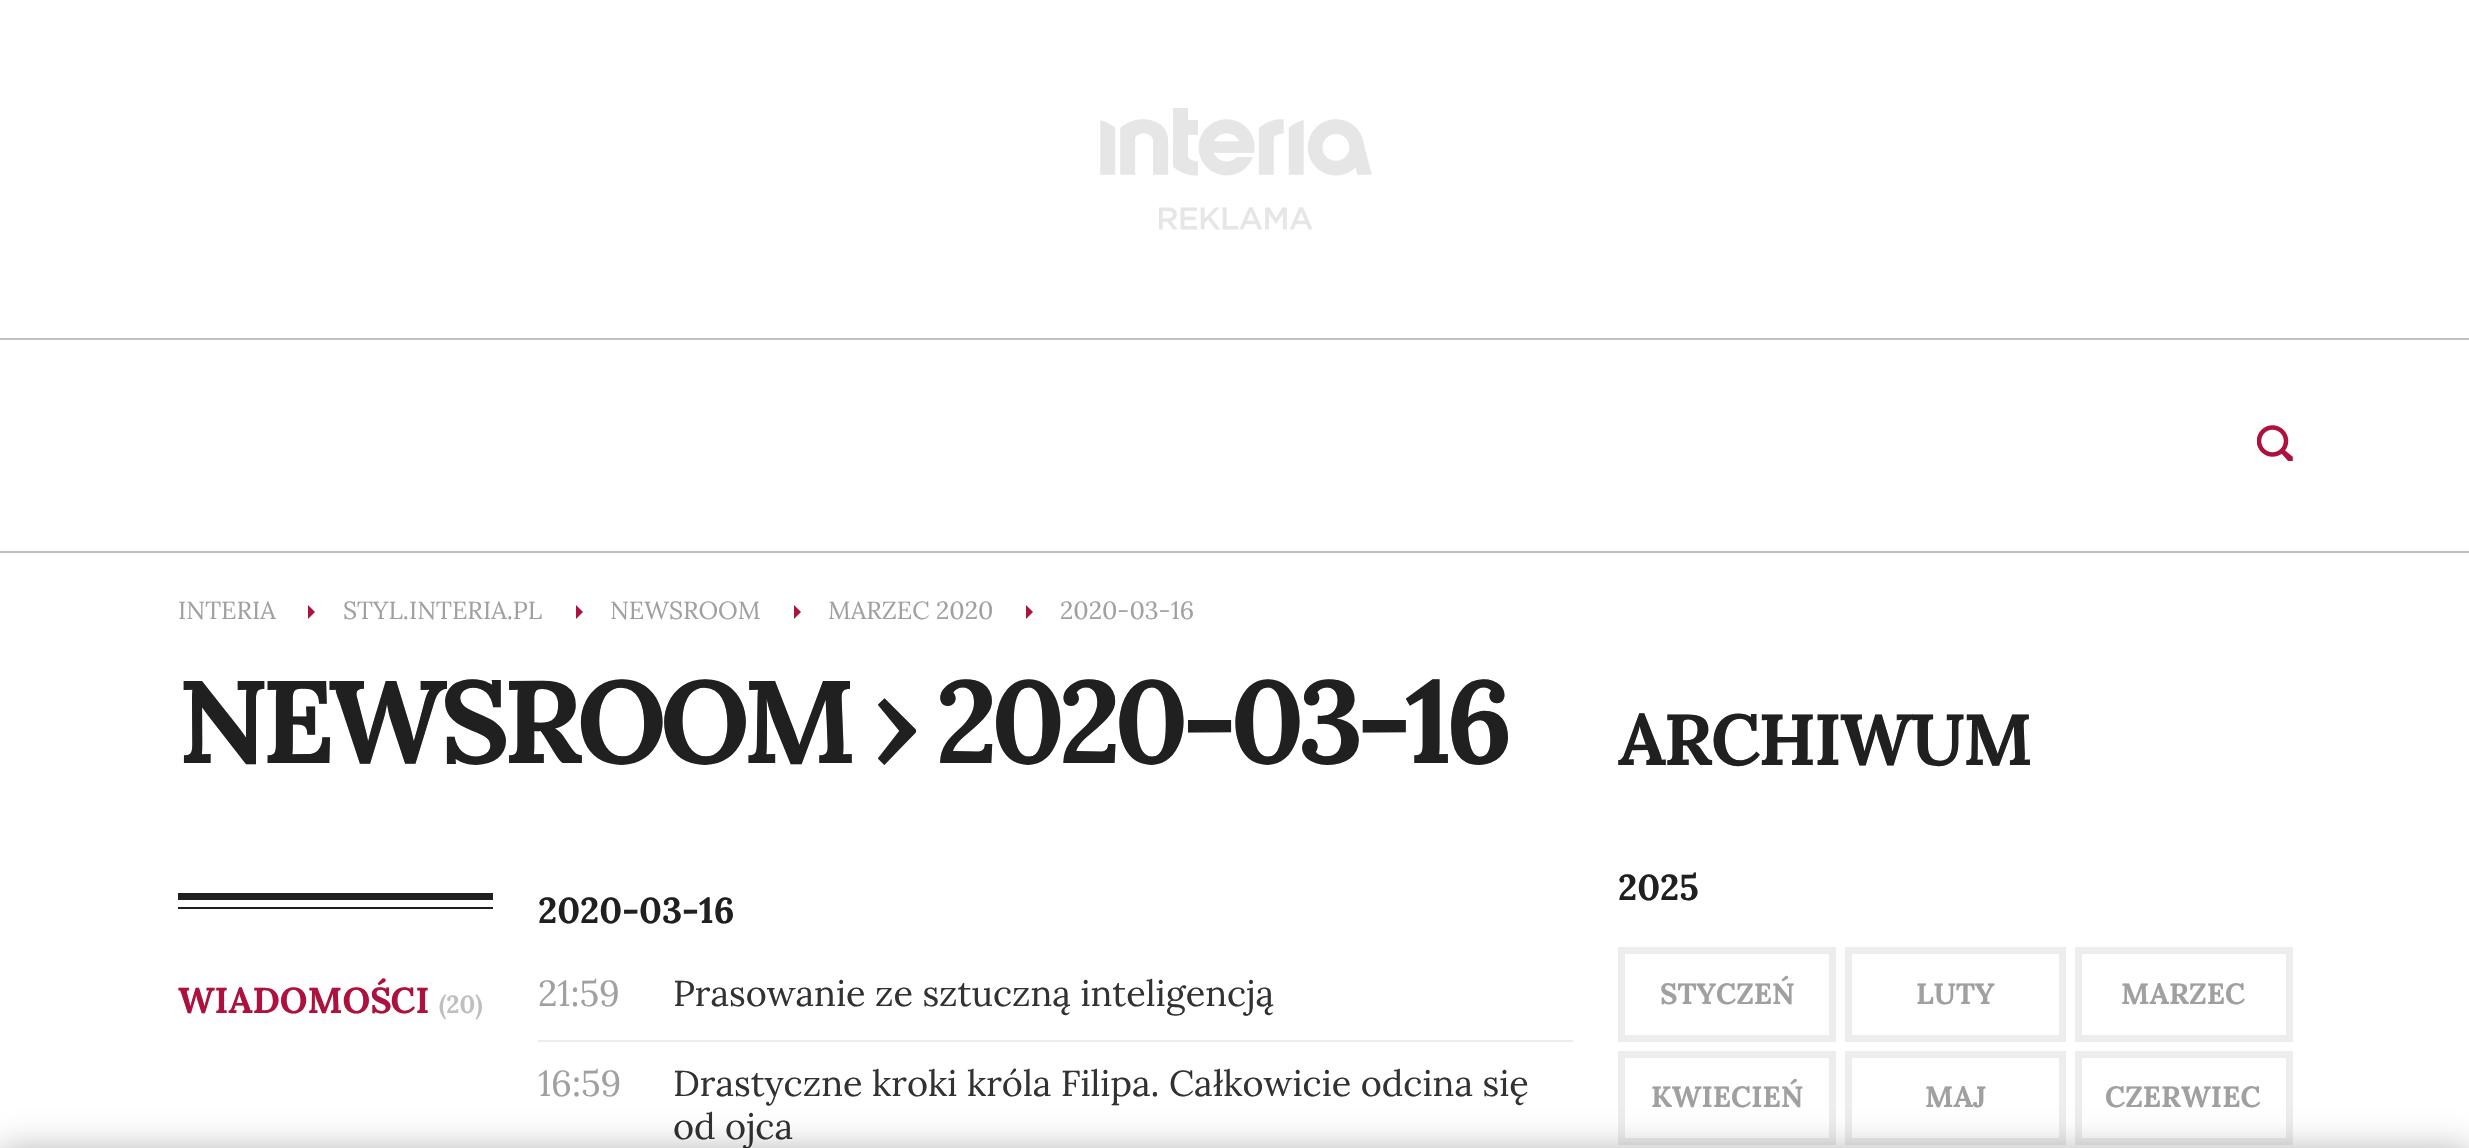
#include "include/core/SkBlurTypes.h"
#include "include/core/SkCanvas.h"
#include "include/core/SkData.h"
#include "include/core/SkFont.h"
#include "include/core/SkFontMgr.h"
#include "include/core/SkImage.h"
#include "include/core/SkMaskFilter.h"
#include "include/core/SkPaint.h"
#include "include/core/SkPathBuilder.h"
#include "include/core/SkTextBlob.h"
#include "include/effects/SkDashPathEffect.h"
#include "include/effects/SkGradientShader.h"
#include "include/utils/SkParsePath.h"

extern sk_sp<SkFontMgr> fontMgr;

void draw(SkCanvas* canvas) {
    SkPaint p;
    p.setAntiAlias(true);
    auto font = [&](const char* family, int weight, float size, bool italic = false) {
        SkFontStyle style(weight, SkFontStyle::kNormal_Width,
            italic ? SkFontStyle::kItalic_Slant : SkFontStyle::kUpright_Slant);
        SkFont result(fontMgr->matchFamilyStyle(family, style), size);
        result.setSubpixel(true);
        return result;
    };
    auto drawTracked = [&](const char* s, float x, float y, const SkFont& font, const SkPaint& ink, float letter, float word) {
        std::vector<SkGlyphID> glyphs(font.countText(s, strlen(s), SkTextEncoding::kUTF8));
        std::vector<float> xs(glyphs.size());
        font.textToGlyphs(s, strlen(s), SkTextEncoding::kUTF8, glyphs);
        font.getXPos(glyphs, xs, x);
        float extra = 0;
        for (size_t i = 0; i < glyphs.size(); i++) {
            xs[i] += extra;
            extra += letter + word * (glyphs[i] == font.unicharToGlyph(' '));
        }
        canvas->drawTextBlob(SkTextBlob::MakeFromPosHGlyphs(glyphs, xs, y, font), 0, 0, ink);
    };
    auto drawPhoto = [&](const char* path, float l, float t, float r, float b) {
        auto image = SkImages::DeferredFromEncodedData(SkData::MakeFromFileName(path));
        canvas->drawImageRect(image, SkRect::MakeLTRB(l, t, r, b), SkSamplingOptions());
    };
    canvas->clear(0xFFFFFFFF);
    p.setColor(0xFFC3C3C3);
    canvas->drawRect(SkRect::MakeLTRB(0, 338, 2469, 340), p);
    drawPhoto("media/1.png", 1100, 108, 1372, 176);
    drawPhoto("media/2.png", 1159, 207, 1313, 230);
    p.setColor(0xFFBFBFBF);
    canvas->drawRect(SkRect::MakeLTRB(0, 551, 2469, 553), p);
    drawPhoto("media/3.png", 2257, 425, 2293, 461);
    auto font1 = font("Lora", 400, 24.75f);
    p.setColor(0xFFA0A0A0);
    canvas->drawString("INTERIA", 178, 619, font1, p);
    p.setColor(0xFFAD123E);
    canvas->drawPath(SkPathBuilder().moveTo(308, 619).lineTo(308, 605).lineTo(315, 612).close().detach(), p);
    p.setColor(0xFFA0A0A0);
    canvas->drawString("STYL.INTERIA.PL", 343, 619, font1, p);
    p.setColor(0xFFAD123E);
    canvas->drawPath(SkPathBuilder().moveTo(576, 619).lineTo(576, 605).lineTo(583, 612).close().detach(), p);
    p.setColor(0xFFA0A0A0);
    canvas->drawString("NEWSROOM", 610, 619, font1, p);
    p.setColor(0xFFAD123E);
    canvas->drawPath(SkPathBuilder().moveTo(794, 619).lineTo(794, 605).lineTo(801, 612).close().detach(), p);
    p.setColor(0xFFA0A0A0);
    canvas->drawString("MARZEC 2020", 828, 619, font1, p);
    p.setColor(0xFFAD123E);
    canvas->drawPath(SkPathBuilder().moveTo(1026, 619).lineTo(1026, 605).lineTo(1033, 612).close().detach(), p);
    p.setColor(0xFFA0A0A0);
    canvas->drawString("2020-03-16", 1060, 619, font1, p);
    auto font2 = font("Lora", 700, 117);
    p.setColor(0xFF202020);
    drawTracked("NEWSROOM › 2020-03-16", 178, 763, font2, p, -6.75f, 0);
    canvas->drawRect(SkRect::MakeLTRB(178, 893, 493, 900), p);
    canvas->drawRect(SkRect::MakeLTRB(178, 907, 493, 909), p);
    auto font3 = font("Lora", 700, 36);
    p.setColor(0xFFAD123E);
    canvas->drawString("WIADOMOŚCI", 178, 1013, font3, p);
    auto font4 = font("Lora", 700, 24.75f);
    p.setColor(0xFFBFBFBF);
    canvas->drawString("(20)", 439, 1013, font4, p);
    p.setColor(0xFF202020);
    canvas->drawString("2020-03-16", 538, 923, font3, p);
    auto font5 = font("Lora", 400, 36);
    p.setColor(0xFFA0A0A0);
    canvas->drawString("21:59", 538, 1006, font5, p);
    p.setColor(0xFF323232);
    canvas->drawString("Prasowanie ze sztuczną inteligencją", 673, 1006, font5, p);
    p.setColor(0xFFEDEDED);
    canvas->drawRect(SkRect::MakeLTRB(538, 1040, 1573, 1042), p);
    p.setColor(0xFFA0A0A0);
    canvas->drawString("16:59", 538, 1096, font5, p);
    p.setColor(0xFF323232);
    canvas->drawString("Drastyczne kroki króla Filipa. Całkowicie odcina się", 673, 1096, font5, p);
    canvas->drawString("od ojca", 673, 1139, font5, p);
    auto font6 = font("Lora", 700, 72);
    p.setColor(0xFF202020);
    drawTracked("ARCHIWUM", 1618, 765, font6, p, -2.25f, 0);
    canvas->drawString("2025", 1618, 900, font3, p);
    p.setStyle(SkPaint::kStroke_Style);
    p.setStrokeWidth(7);
    p.setColor(0xFFEDEDED);
    canvas->drawRect(SkRect::MakeLTRB(1621.5f, 950.5f, 1832.5f, 1038.5f), p);
    auto font7 = font("Lora", 700, 29.25f);
    p.setStyle(SkPaint::kFill_Style);
    p.setColor(0xFFA0A0A0);
    canvas->drawString("STYCZEŃ", 1660, 1004, font7, p);
    p.setStyle(SkPaint::kStroke_Style);
    p.setColor(0xFFEDEDED);
    canvas->drawRect(SkRect::MakeLTRB(1848.5f, 950.5f, 2062.5f, 1038.5f), p);
    p.setStyle(SkPaint::kFill_Style);
    p.setColor(0xFFA0A0A0);
    canvas->drawString("LUTY", 1916, 1004, font7, p);
    p.setStyle(SkPaint::kStroke_Style);
    p.setColor(0xFFEDEDED);
    canvas->drawRect(SkRect::MakeLTRB(2078.5f, 950.5f, 2289.5f, 1038.5f), p);
    p.setStyle(SkPaint::kFill_Style);
    p.setColor(0xFFA0A0A0);
    canvas->drawString("MARZEC", 2121, 1004, font7, p);
    p.setStyle(SkPaint::kStroke_Style);
    p.setColor(0xFFEDEDED);
    canvas->drawRect(SkRect::MakeLTRB(1621.5f, 1054.5f, 1832.5f, 1141.5f), p);
    p.setStyle(SkPaint::kFill_Style);
    p.setColor(0xFFA0A0A0);
    canvas->drawString("KWIECIEŃ", 1651, 1107, font7, p);
    p.setStyle(SkPaint::kStroke_Style);
    p.setColor(0xFFEDEDED);
    canvas->drawRect(SkRect::MakeLTRB(1848.5f, 1054.5f, 2062.5f, 1141.5f), p);
    p.setStyle(SkPaint::kFill_Style);
    p.setColor(0xFFA0A0A0);
    canvas->drawString("MAJ", 1925, 1107, font7, p);
    p.setStyle(SkPaint::kStroke_Style);
    p.setColor(0xFFEDEDED);
    canvas->drawRect(SkRect::MakeLTRB(2078.5f, 1054.5f, 2289.5f, 1141.5f), p);
    p.setStyle(SkPaint::kFill_Style);
    p.setColor(0xFFA0A0A0);
    canvas->drawString("CZERWIEC", 2105, 1107, font7, p);
    p.setColor(0x4D000000);
    p.setMaskFilter(SkMaskFilter::MakeBlur(kNormal_SkBlurStyle, 17));
    canvas->drawRect(SkRect::MakeLTRB(0, 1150, 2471, 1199), p);
    p.setMaskFilter(nullptr);
}
